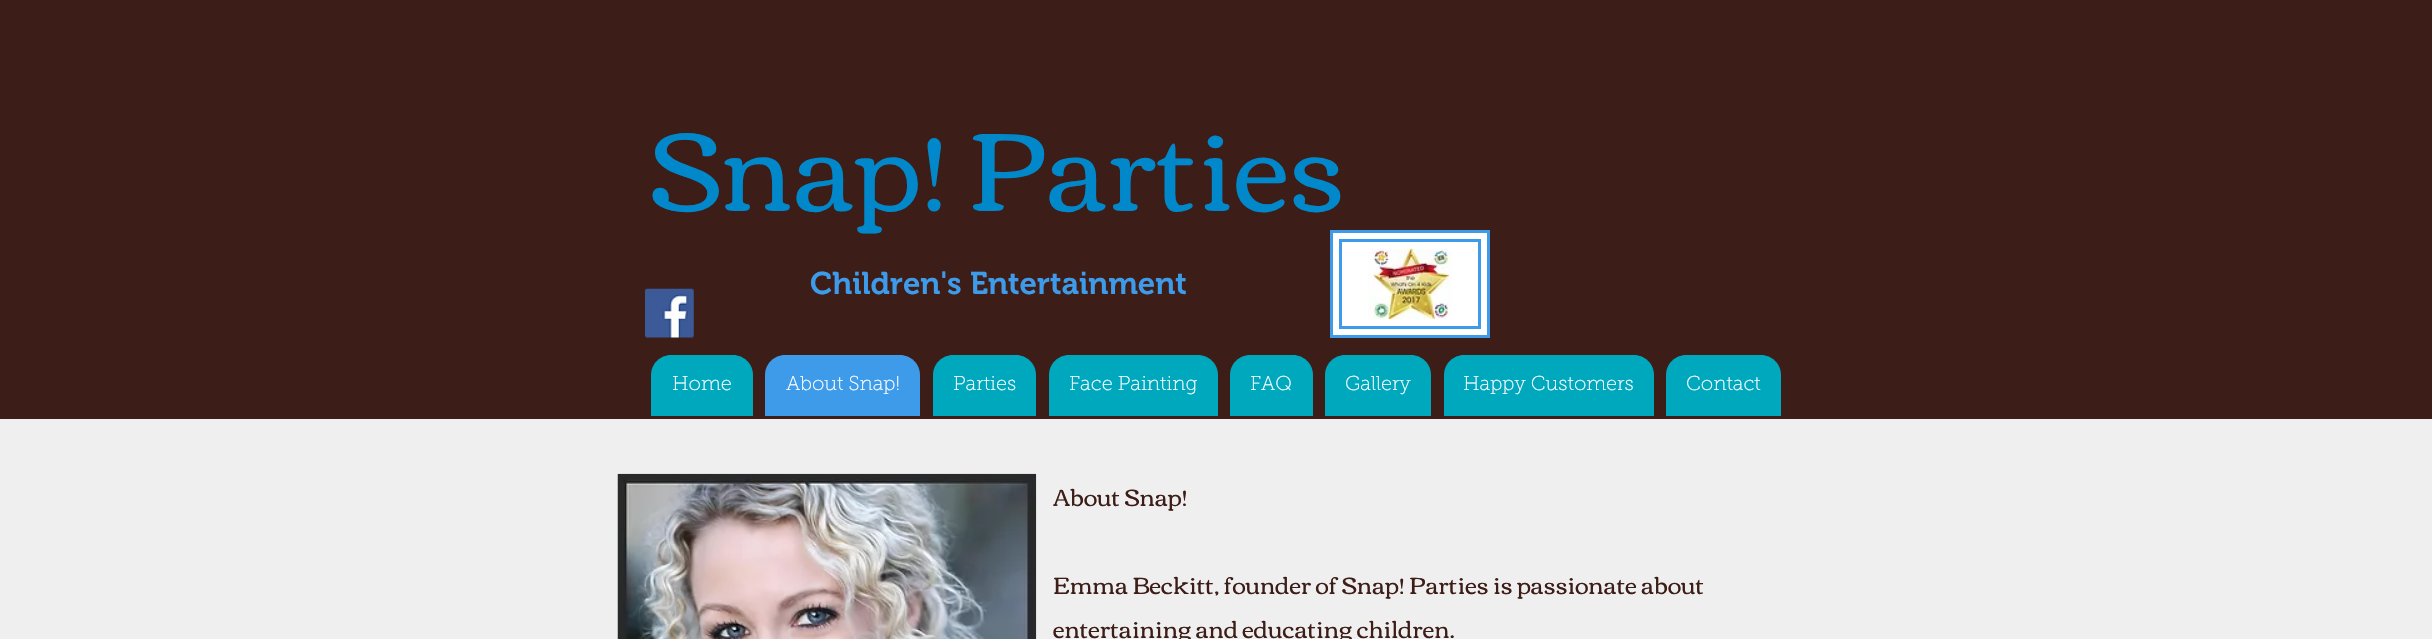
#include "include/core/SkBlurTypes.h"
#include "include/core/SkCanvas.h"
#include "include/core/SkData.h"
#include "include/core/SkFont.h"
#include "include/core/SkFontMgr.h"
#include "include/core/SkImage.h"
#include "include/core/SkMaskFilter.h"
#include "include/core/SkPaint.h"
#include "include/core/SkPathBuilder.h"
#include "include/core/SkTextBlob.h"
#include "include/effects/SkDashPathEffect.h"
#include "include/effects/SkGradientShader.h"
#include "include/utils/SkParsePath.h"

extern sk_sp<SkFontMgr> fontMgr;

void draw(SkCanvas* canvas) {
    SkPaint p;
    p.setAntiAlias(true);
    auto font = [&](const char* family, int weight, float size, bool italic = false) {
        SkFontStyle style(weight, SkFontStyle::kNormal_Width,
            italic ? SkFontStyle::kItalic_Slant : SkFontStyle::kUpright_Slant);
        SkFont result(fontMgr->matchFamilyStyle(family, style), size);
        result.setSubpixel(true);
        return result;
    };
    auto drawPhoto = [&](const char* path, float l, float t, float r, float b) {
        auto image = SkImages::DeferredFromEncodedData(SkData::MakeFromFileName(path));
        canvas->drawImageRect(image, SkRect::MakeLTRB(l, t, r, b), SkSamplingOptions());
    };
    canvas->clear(0xFFEFEFEF);
    p.setColor(0xFF3C1D17);
    canvas->drawRect(SkRect::MakeLTRB(0, 0, 2432, 419), p);
    auto font1 = font("Corben", 400, 112.5f);
    p.setColor(0xFF0088CB);
    canvas->drawString("Snap! Parties", 650, 211, font1, p);
    auto font2 = font("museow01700", 600, 31.25f);
    p.setColor(0xFF3D9BE9);
    canvas->drawString("Children's Entertainment", 810, 294, font2, p);
    p.setColor(0xFFFFFFFF);
    canvas->drawRect(SkRect::MakeLTRB(1331.5f, 231.5f, 1488.5f, 336.5f), p);
    p.setStyle(SkPaint::kStroke_Style);
    p.setStrokeWidth(3);
    p.setColor(0xFF3D9BE9);
    canvas->drawRect(SkRect::MakeLTRB(1331.5f, 231.5f, 1488.5f, 336.5f), p);
    drawPhoto("media/1.png", 1368, 248, 1452, 319);
    canvas->drawRect(SkRect::MakeLTRB(1340.5f, 240.5f, 1479.5f, 327.5f), p);
    drawPhoto("media/2.png", 645, 288, 694, 338);
    p.setStyle(SkPaint::kFill_Style);
    p.setColor(0xFF00A8BE);
    canvas->drawPath(SkPathBuilder().moveTo(671, 355).lineTo(733, 355).cubicTo(744, 355, 753, 364, 753, 375).lineTo(753, 416).lineTo(651, 416).lineTo(651, 375).cubicTo(651, 364, 660, 355, 671, 355).close().detach(), p);
    auto font3 = font("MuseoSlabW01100", 100, 20);
    p.setColor(0xFFFFFFFF);
    canvas->drawString("Home", 672, 390, font3, p);
    p.setColor(0xFF3D9BE9);
    canvas->drawPath(SkPathBuilder().moveTo(785, 355).lineTo(900, 355).cubicTo(911, 355, 920, 364, 920, 375).lineTo(920, 416).lineTo(765, 416).lineTo(765, 375).cubicTo(765, 364, 774, 355, 785, 355).close().detach(), p);
    p.setColor(0xFFFFFFFF);
    canvas->drawString("About Snap!", 786, 390, font3, p);
    p.setColor(0xFF00A8BE);
    canvas->drawPath(SkPathBuilder().moveTo(953, 355).lineTo(1016, 355).cubicTo(1027, 355, 1036, 364, 1036, 375).lineTo(1036, 416).lineTo(933, 416).lineTo(933, 375).cubicTo(933, 364, 942, 355, 953, 355).close().detach(), p);
    p.setColor(0xFFFFFFFF);
    canvas->drawString("Parties", 953, 390, font3, p);
    p.setColor(0xFF00A8BE);
    canvas->drawPath(SkPathBuilder().moveTo(1069, 355).lineTo(1198, 355).cubicTo(1209, 355, 1218, 364, 1218, 375).lineTo(1218, 416).lineTo(1049, 416).lineTo(1049, 375).cubicTo(1049, 364, 1058, 355, 1069, 355).close().detach(), p);
    p.setColor(0xFFFFFFFF);
    canvas->drawString("Face Painting", 1069, 390, font3, p);
    p.setColor(0xFF00A8BE);
    canvas->drawPath(SkPathBuilder().moveTo(1250, 355).lineTo(1293, 355).cubicTo(1304, 355, 1313, 364, 1313, 375).lineTo(1313, 416).lineTo(1230, 416).lineTo(1230, 375).cubicTo(1230, 364, 1239, 355, 1250, 355).close().detach(), p);
    p.setColor(0xFFFFFFFF);
    canvas->drawString("FAQ", 1250, 390, font3, p);
    p.setColor(0xFF00A8BE);
    canvas->drawPath(SkPathBuilder().moveTo(1345, 355).lineTo(1411, 355).cubicTo(1422, 355, 1431, 364, 1431, 375).lineTo(1431, 416).lineTo(1325, 416).lineTo(1325, 375).cubicTo(1325, 364, 1334, 355, 1345, 355).close().detach(), p);
    p.setColor(0xFFFFFFFF);
    canvas->drawString("Gallery", 1345, 390, font3, p);
    p.setColor(0xFF00A8BE);
    canvas->drawPath(SkPathBuilder().moveTo(1464, 355).lineTo(1634, 355).cubicTo(1645, 355, 1654, 364, 1654, 375).lineTo(1654, 416).lineTo(1444, 416).lineTo(1444, 375).cubicTo(1444, 364, 1453, 355, 1464, 355).close().detach(), p);
    p.setColor(0xFFFFFFFF);
    canvas->drawString("Happy Customers", 1463, 390, font3, p);
    p.setColor(0xFF00A8BE);
    canvas->drawPath(SkPathBuilder().moveTo(1686, 355).lineTo(1761, 355).cubicTo(1772, 355, 1781, 364, 1781, 375).lineTo(1781, 416).lineTo(1666, 416).lineTo(1666, 375).cubicTo(1666, 364, 1675, 355, 1686, 355).close().detach(), p);
    p.setColor(0xFFFFFFFF);
    canvas->drawString("Contact", 1686, 390, font3, p);
    drawPhoto("media/3.png", 617, 473, 1037, 639);
    auto font4 = font("Corben", 400, 23.75f);
    p.setColor(0xFF3C1D17);
    {
        const struct { const char* s; float x, y; } items[] = {
            {"About Snap!", 1053, 506},
            {"Emma Beckitt, founder of Snap! Parties is passionate about", 1053, 594},
            {"entertaining and educating children.", 1053, 638},
        };
        for (auto [s, x, y] : items) {
            canvas->drawString(s, x, y, font4, p);
        }
    }
}
